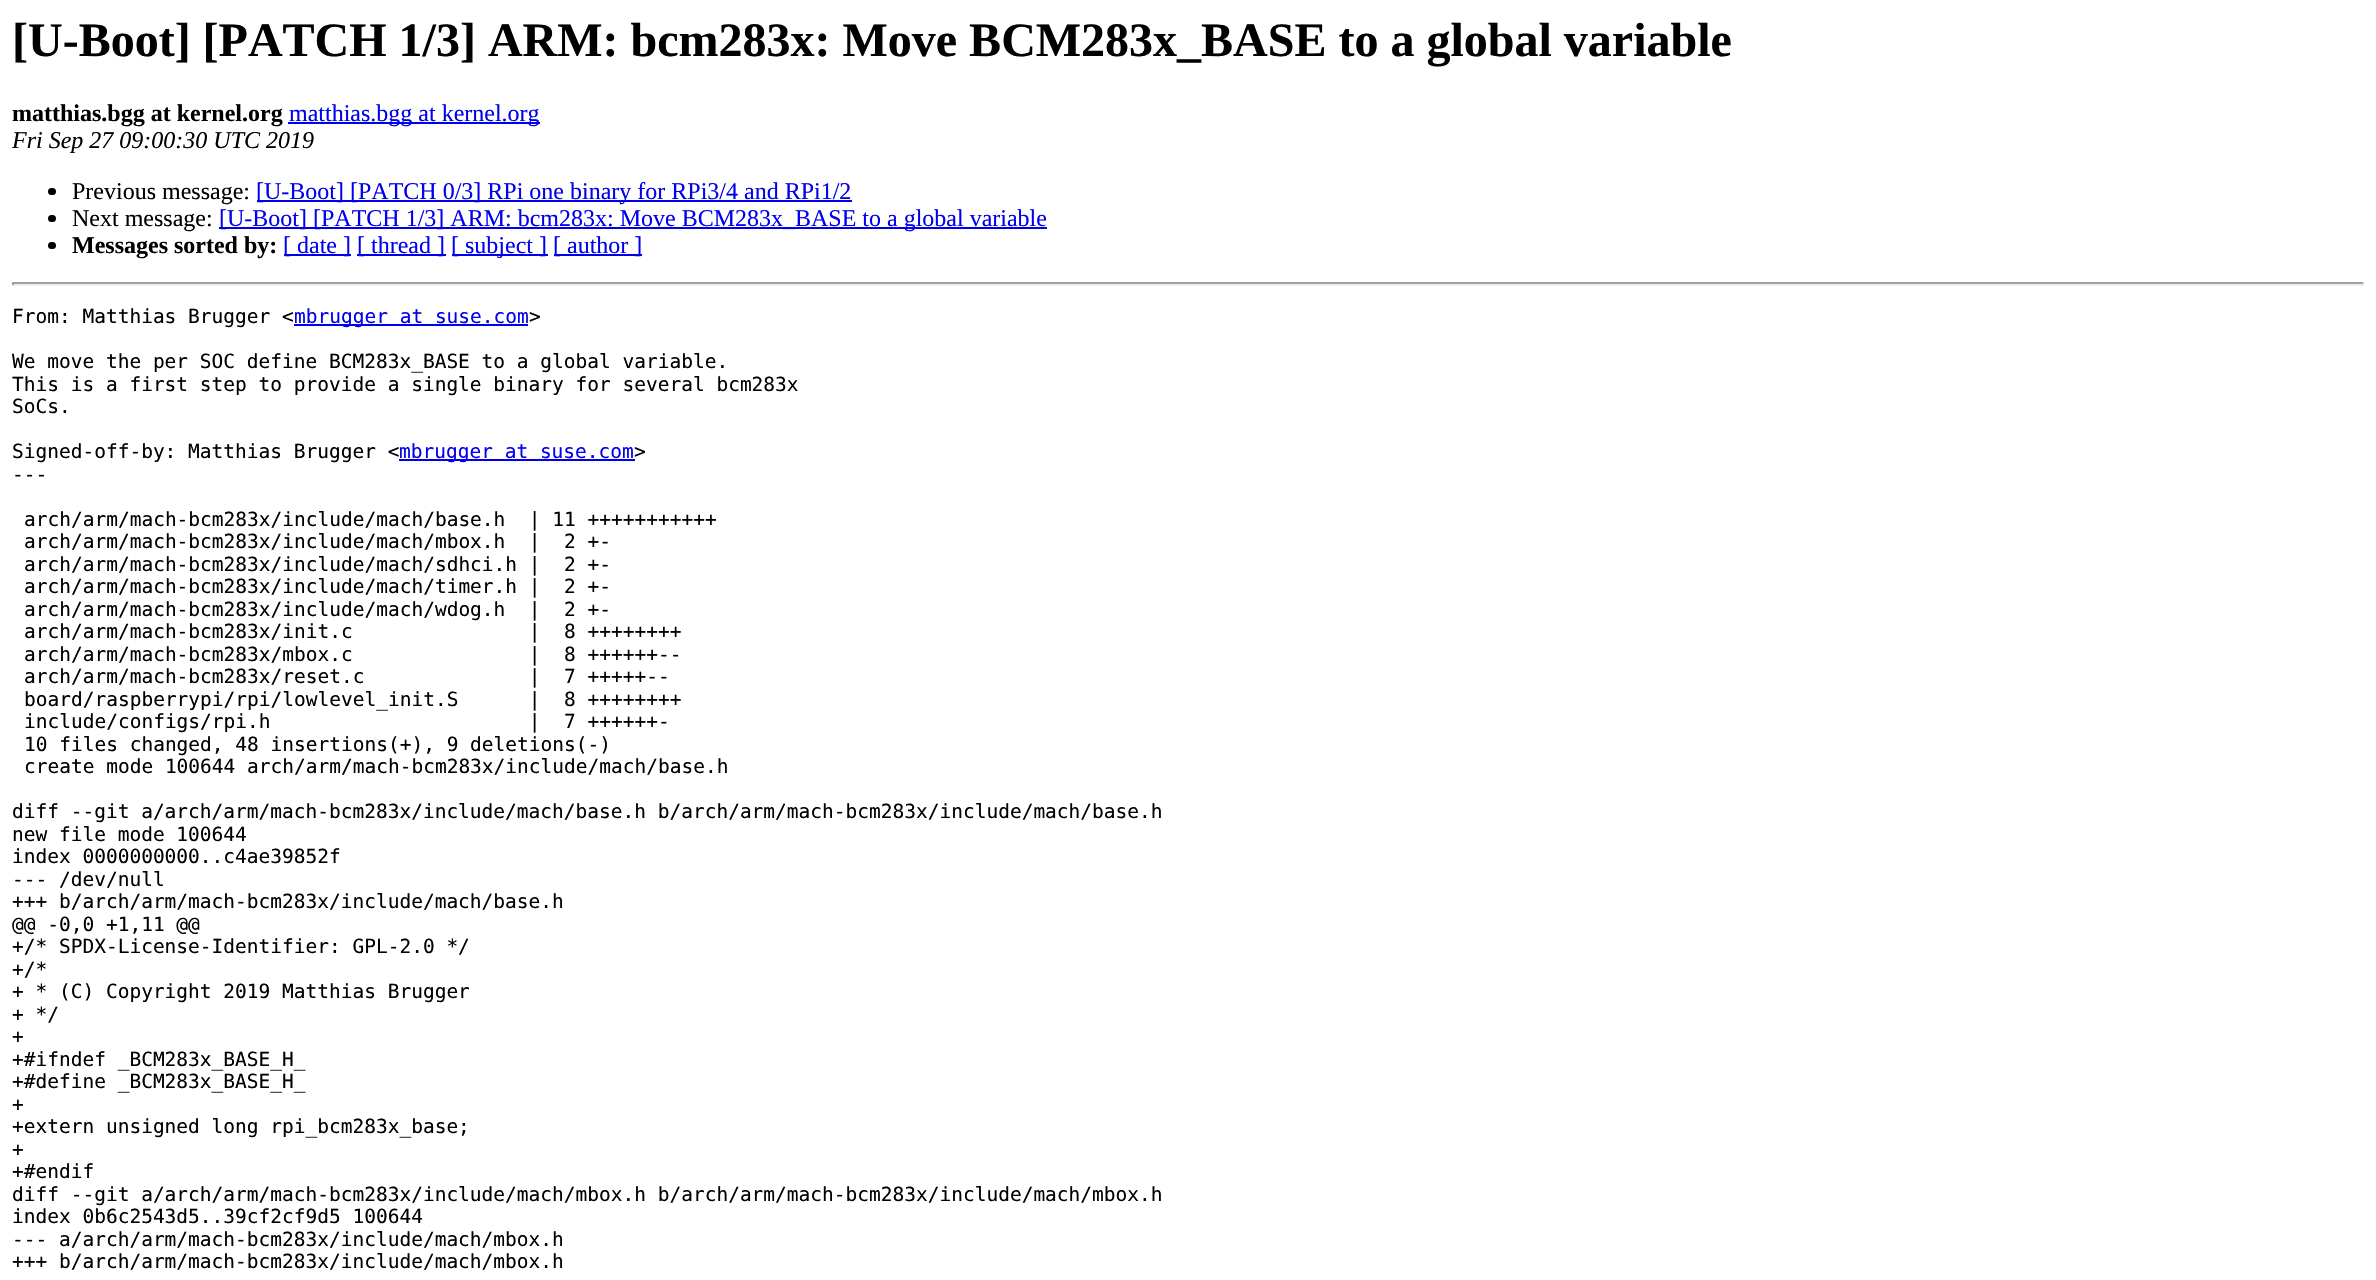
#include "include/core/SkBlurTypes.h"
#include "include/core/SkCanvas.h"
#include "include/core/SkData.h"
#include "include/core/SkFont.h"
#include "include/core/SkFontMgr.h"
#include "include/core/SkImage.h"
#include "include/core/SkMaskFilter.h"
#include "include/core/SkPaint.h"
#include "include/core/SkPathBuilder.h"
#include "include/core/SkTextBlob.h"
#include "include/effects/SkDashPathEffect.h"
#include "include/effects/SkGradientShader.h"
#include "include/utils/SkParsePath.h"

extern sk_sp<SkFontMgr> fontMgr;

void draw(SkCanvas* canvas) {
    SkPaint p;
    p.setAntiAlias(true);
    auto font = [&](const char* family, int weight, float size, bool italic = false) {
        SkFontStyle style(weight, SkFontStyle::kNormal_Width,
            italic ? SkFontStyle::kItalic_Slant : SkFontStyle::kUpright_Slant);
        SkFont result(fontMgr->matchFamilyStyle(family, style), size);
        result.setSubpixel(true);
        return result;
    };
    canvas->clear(0xFFFFFFFF);
    auto font1 = font("Liberation Serif", 700, 48);
    p.setColor(0xFF000000);
    canvas->drawString("[U-Boot] [PATCH 1/3] ARM: bcm283x: Move BCM283x_BASE to a global variable", 12, 56, font1, p);
    auto font2 = font("Liberation Serif", 700, 24);
    canvas->drawString("matthias.bgg at kernel.org", 12, 121, font2, p);
    p.setColor(0xFF0000EE);
    canvas->drawRect(SkRect::MakeLTRB(288, 122, 540, 124), p);
    auto font3 = font("Liberation Serif", 400, 24);
    canvas->drawString("matthias.bgg at kernel.org", 289, 121, font3, p);
    auto font4 = font("Liberation Serif", 400, 24, true);
    p.setColor(0xFF000000);
    canvas->drawString("Fri Sep 27 09:00:30 UTC 2019", 12, 148, font4, p);
    canvas->drawRoundRect(SkRect::MakeLTRB(48, 188, 56, 195), 3.5f, 3.5f, p);
    canvas->drawString("Previous message:", 72, 199, font3, p);
    p.setColor(0xFF0000EE);
    canvas->drawRect(SkRect::MakeLTRB(257, 200, 852, 202), p);
    canvas->drawString("[U-Boot] [PATCH 0/3] RPi one binary for RPi3/4 and RPi1/2", 256, 199, font3, p);
    p.setColor(0xFF000000);
    canvas->drawRoundRect(SkRect::MakeLTRB(48, 215, 56, 222), 3.5f, 3.5f, p);
    canvas->drawString("Next message:", 72, 226, font3, p);
    p.setColor(0xFF0000EE);
    canvas->drawRect(SkRect::MakeLTRB(219, 227, 1047, 229), p);
    canvas->drawString("[U-Boot] [PATCH 1/3] ARM: bcm283x: Move BCM283x_BASE to a global variable", 219, 226, font3, p);
    p.setColor(0xFF000000);
    canvas->drawRoundRect(SkRect::MakeLTRB(48, 242, 56, 249), 3.5f, 3.5f, p);
    canvas->drawString("Messages sorted by:", 72, 253, font2, p);
    p.setColor(0xFF0000EE);
    canvas->drawRect(SkRect::MakeLTRB(284, 254, 351, 256), p);
    canvas->drawString("[ date ]", 283, 253, font3, p);
    canvas->drawRect(SkRect::MakeLTRB(357, 254, 446, 256), p);
    canvas->drawString("[ thread ]", 357, 253, font3, p);
    canvas->drawRect(SkRect::MakeLTRB(452, 254, 548, 256), p);
    canvas->drawString("[ subject ]", 451, 253, font3, p);
    canvas->drawRect(SkRect::MakeLTRB(554, 254, 642, 256), p);
    canvas->drawString("[ author ]", 553, 253, font3, p);
    {
        const struct { float l, t, r, b; SkColor color; } items[] = {
            {12, 282, 2364, 284, 0xFF9F9F9F},
            {2363, 282, 2365, 285, 0xFFEEEEEE},
            {12, 284, 2364, 286, 0xFFEEEEEE},
            {12, 282, 14, 285, 0xFF9F9F9F},
        };
        for (auto [l, t, r, b, color] : items) {
            p.setColor(color);
            canvas->drawRect(SkRect::MakeLTRB(l, t, r, b), p);
        }
    }
    auto font5 = font("DejaVu Sans Mono", 400, 19.5f);
    p.setColor(0xFF000000);
    canvas->drawString("From: Matthias Brugger <", 12, 323, font5, p);
    p.setColor(0xFF0000EE);
    canvas->drawRect(SkRect::MakeLTRB(294, 324, 528, 326), p);
    canvas->drawString("mbrugger at suse.com", 294, 323, font5, p);
    p.setColor(0xFF000000);
    {
        const struct { const char* s; float x, y; } items[] = {
            {">", 529, 323},
            {"We move the per SOC define BCM283x_BASE to a global variable.", 12, 368},
            {"This is a first step to provide a single binary for several bcm283x", 12, 391},
            {"SoCs.", 12, 413},
            {"Signed-off-by: Matthias Brugger <", 12, 458},
        };
        for (auto [s, x, y] : items) {
            canvas->drawString(s, x, y, font5, p);
        }
    }
    p.setColor(0xFF0000EE);
    canvas->drawRect(SkRect::MakeLTRB(399, 459, 635, 461), p);
    canvas->drawString("mbrugger at suse.com", 399, 458, font5, p);
    p.setColor(0xFF000000);
    {
        const struct { const char* s; float x, y; } items[] = {
            {">", 634, 458},
            {"---", 12, 481},
            {"arch/arm/mach-bcm283x/include/mach/base.h  | 11 +++++++++++", 24, 526},
            {"arch/arm/mach-bcm283x/include/mach/mbox.h  |  2 +-", 24, 548},
            {"arch/arm/mach-bcm283x/include/mach/sdhci.h |  2 +-", 24, 571},
            {"arch/arm/mach-bcm283x/include/mach/timer.h |  2 +-", 24, 593},
            {"arch/arm/mach-bcm283x/include/mach/wdog.h  |  2 +-", 24, 616},
            {"arch/arm/mach-bcm283x/init.c               |  8 ++++++++", 24, 638},
            {"arch/arm/mach-bcm283x/mbox.c               |  8 ++++++--", 24, 661},
            {"arch/arm/mach-bcm283x/reset.c              |  7 +++++--", 24, 683},
            {"board/raspberrypi/rpi/lowlevel_init.S      |  8 ++++++++", 24, 706},
            {"include/configs/rpi.h                      |  7 ++++++-", 24, 728},
            {"10 files changed, 48 insertions(+), 9 deletions(-)", 24, 751},
            {"create mode 100644 arch/arm/mach-bcm283x/include/mach/base.h", 24, 773},
            {"diff --git a/arch/arm/mach-bcm283x/include/mach/base.h b/arch/arm/mach-bcm283x/include/mach/base.h", 12, 818},
            {"new file mode 100644", 12, 841},
            {"index 0000000000..c4ae39852f", 12, 863},
            {"--- /dev/null", 12, 886},
            {"+++ b/arch/arm/mach-bcm283x/include/mach/base.h", 12, 908},
            {"@@ -0,0 +1,11 @@", 12, 931},
            {"+/* SPDX-License-Identifier: GPL-2.0 */", 12, 953},
            {"+/*", 12, 976},
            {"+ * (C) Copyright 2019 Matthias Brugger", 12, 998},
            {"+ */", 12, 1021},
            {"+", 12, 1043},
            {"+#ifndef _BCM283x_BASE_H_", 12, 1066},
            {"+#define _BCM283x_BASE_H_", 12, 1088},
            {"+", 12, 1111},
            {"+extern unsigned long rpi_bcm283x_base;", 12, 1133},
            {"+", 12, 1156},
            {"+#endif", 12, 1178},
            {"diff --git a/arch/arm/mach-bcm283x/include/mach/mbox.h b/arch/arm/mach-bcm283x/include/mach/mbox.h", 12, 1201},
            {"index 0b6c2543d5..39cf2cf9d5 100644", 12, 1223},
            {"--- a/arch/arm/mach-bcm283x/include/mach/mbox.h", 12, 1246},
            {"+++ b/arch/arm/mach-bcm283x/include/mach/mbox.h", 12, 1268},
        };
        for (auto [s, x, y] : items) {
            canvas->drawString(s, x, y, font5, p);
        }
    }
}
